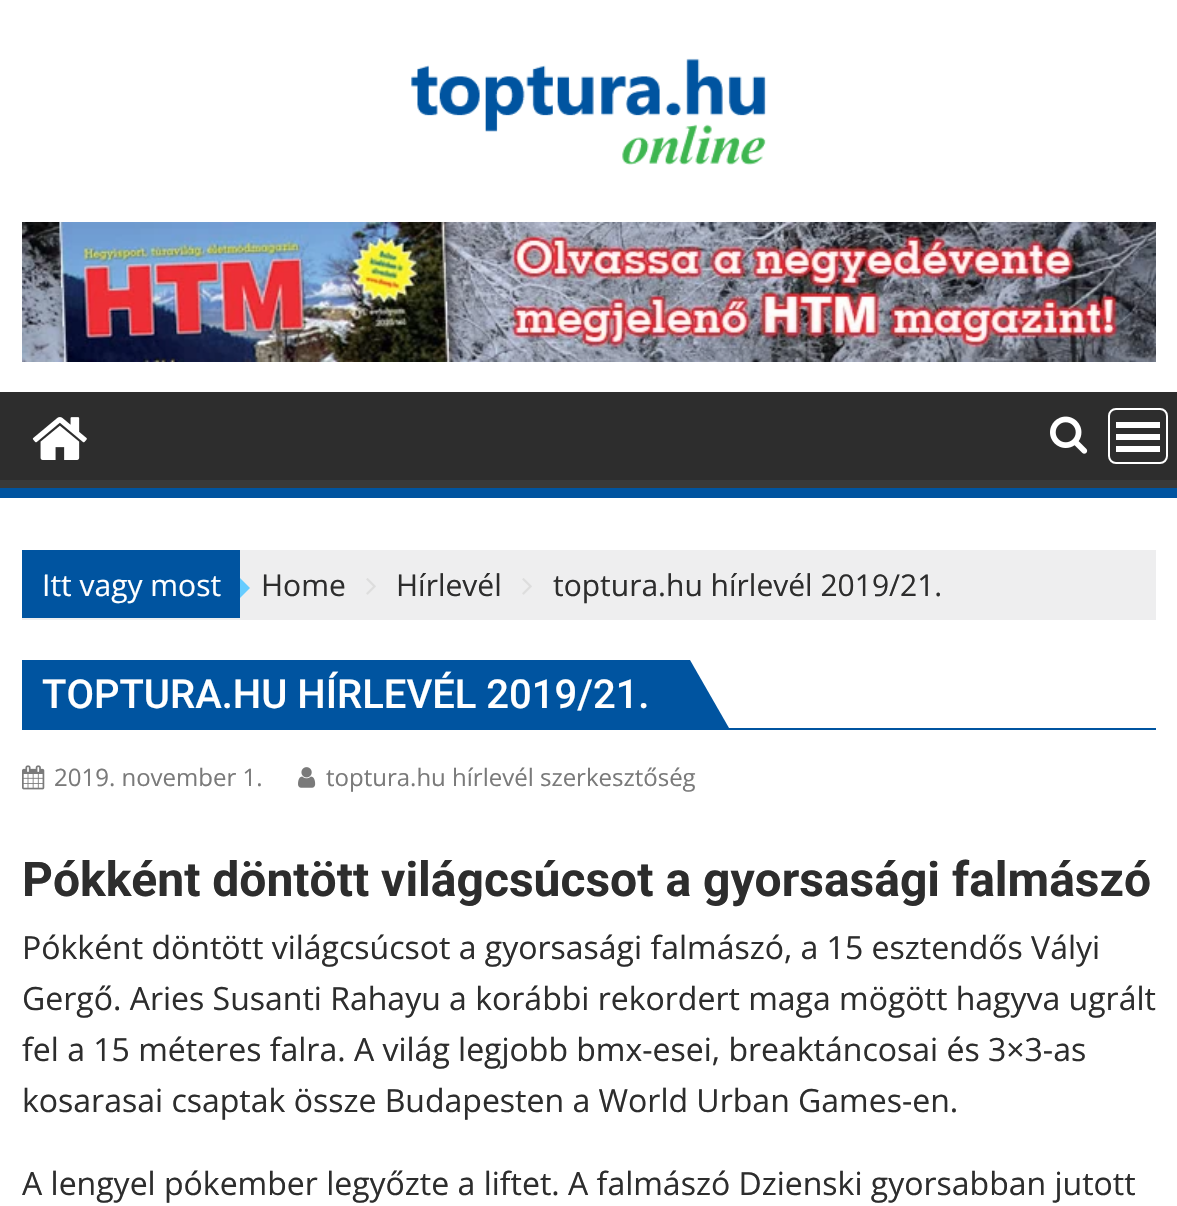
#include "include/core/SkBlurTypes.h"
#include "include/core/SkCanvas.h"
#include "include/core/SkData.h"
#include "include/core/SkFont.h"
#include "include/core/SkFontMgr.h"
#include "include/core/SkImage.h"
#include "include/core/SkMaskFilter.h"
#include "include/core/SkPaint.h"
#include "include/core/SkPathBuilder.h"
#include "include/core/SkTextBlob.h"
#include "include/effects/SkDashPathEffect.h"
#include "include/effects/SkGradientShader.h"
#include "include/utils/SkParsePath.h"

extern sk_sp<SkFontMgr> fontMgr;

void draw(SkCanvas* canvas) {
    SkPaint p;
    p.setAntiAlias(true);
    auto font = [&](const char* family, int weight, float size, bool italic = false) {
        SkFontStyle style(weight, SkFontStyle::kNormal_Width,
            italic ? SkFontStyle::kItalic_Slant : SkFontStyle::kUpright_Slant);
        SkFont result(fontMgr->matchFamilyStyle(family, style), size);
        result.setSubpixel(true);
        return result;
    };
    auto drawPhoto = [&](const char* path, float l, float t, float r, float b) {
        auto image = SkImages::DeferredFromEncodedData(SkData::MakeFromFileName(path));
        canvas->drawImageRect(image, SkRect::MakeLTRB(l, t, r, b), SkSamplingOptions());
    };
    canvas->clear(0xFFFFFFFF);
    drawPhoto("media/1.png", 411, 58, 766, 165);
    drawPhoto("media/2.png", 22, 222, 1156, 362);
    p.setColor(0xFF2D2D2D);
    canvas->drawRect(SkRect::MakeLTRB(0, 392, 1177, 480), p);
    canvas->save();
    canvas->clipRect(SkRect::MakeLTRB(0, 392, 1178, 488));
    p.setColor(0xFF393939);
    canvas->drawPath(SkPathBuilder(SkPathFillType::kEvenOdd).moveTo(-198, 194).lineTo(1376, 194).lineTo(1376, 686).lineTo(-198, 686).close().moveTo(-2, 380).lineTo(1176, 380).cubicTo(1177, 380, 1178, 381, 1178, 382).lineTo(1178, 478).cubicTo(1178, 479, 1177, 480, 1176, 480).lineTo(-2, 480).cubicTo(-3, 480, -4, 479, -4, 478).lineTo(-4, 382).cubicTo(-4, 381, -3, 380, -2, 380).close().detach(), p);
    canvas->restore();
    p.setColor(0xFF0054A0);
    canvas->drawRect(SkRect::MakeLTRB(0, 488, 1177, 498), p);
    drawPhoto("media/3.png", 32, 417, 87, 460);
    drawPhoto("media/4.png", 1050, 416, 1088, 454);
    p.setStyle(SkPaint::kStroke_Style);
    p.setStrokeWidth(2);
    p.setColor(0xFFFFFFFF);
    canvas->drawRoundRect(SkRect::MakeLTRB(1109, 409, 1167, 463), 7, 7, p);
    p.setStyle(SkPaint::kFill_Style);
    {
        const struct { float l, t, r, b; SkColor color; } items[] = {
            {1116, 446, 1160, 452, 0xFFFFFFFF},
            {1116, 434, 1160, 440, 0xFFFFFFFF},
            {1116, 422, 1160, 428, 0xFFFFFFFF},
            {22, 550, 1156, 620, 0xFFEEEEEF},
            {22, 550, 240, 618, 0xFF0054A0},
        };
        for (auto [l, t, r, b, color] : items) {
            p.setColor(color);
            canvas->drawRect(SkRect::MakeLTRB(l, t, r, b), p);
        }
    }
    auto font1 = font("Open Sans", 400, 30);
    p.setColor(0xFFFFFFFF);
    canvas->drawString("Itt vagy most", 42, 596, font1, p);
    p.setColor(0xFF66CCFF);
    canvas->drawPath(SkPathBuilder().moveTo(240, 598).lineTo(240, 578).lineTo(250, 588).close().detach(), p);
    p.setColor(0xFF2D2D2D);
    canvas->drawString("Home", 261, 596, font1, p);
    drawPhoto("media/5.png", 366, 578, 376, 595);
    canvas->drawString("Hírlevél", 396, 596, font1, p);
    drawPhoto("media/5.png", 522, 578, 532, 595);
    canvas->drawString("toptura.hu hírlevél 2019/21.", 553, 596, font1, p);
    p.setColor(0xFF0054A0);
    canvas->drawRect(SkRect::MakeLTRB(22, 728, 1156, 730), p);
    canvas->drawRect(SkRect::MakeLTRB(22, 660, 649, 728), p);
    canvas->drawPath(SkPathBuilder().moveTo(610, 660).lineTo(690, 660).lineTo(729, 728).lineTo(649, 728).close().detach(), p);
    auto font2 = font("Roboto", 500, 40);
    p.setColor(0xFFFFFFFF);
    canvas->drawString("TOPTURA.HU HÍRLEVÉL 2019/21.", 42, 708, font2, p);
    drawPhoto("media/6.png", 22, 765, 45, 790);
    auto font3 = font("Open Sans", 400, 24);
    p.setColor(0xFF7A7A7A);
    canvas->drawString("2019. november 1.", 54, 786, font3, p);
    drawPhoto("media/7.png", 298, 767, 316, 788);
    canvas->drawString("toptura.hu hírlevél szerkesztőség", 326, 786, font3, p);
    auto font4 = font("Roboto", 700, 48);
    p.setColor(0xFF2D2D2D);
    canvas->drawString("Pókként döntött világcsúcsot a gyorsasági falmászó", 22, 896, font4, p);
    auto font5 = font("Open Sans", 400, 32);
    {
        const struct { const char* s; float x, y; } items[] = {
            {"Pókként döntött világcsúcsot a gyorsasági falmászó, a 15 esztendős Vályi", 22, 959},
            {"Gergő. Aries Susanti Rahayu a korábbi rekordert maga mögött hagyva ugrált", 22, 1010},
            {"fel a 15 méteres falra. A világ legjobb bmx-esei, breaktáncosai és 3×3-as", 22, 1061},
            {"kosarasai csaptak össze Budapesten a World Urban Games-en.", 22, 1112},
            {"A lengyel pókember legyőzte a liftet. A falmászó Dzienski gyorsabban jutott", 22, 1195},
        };
        for (auto [s, x, y] : items) {
            canvas->drawString(s, x, y, font5, p);
        }
    }
}
